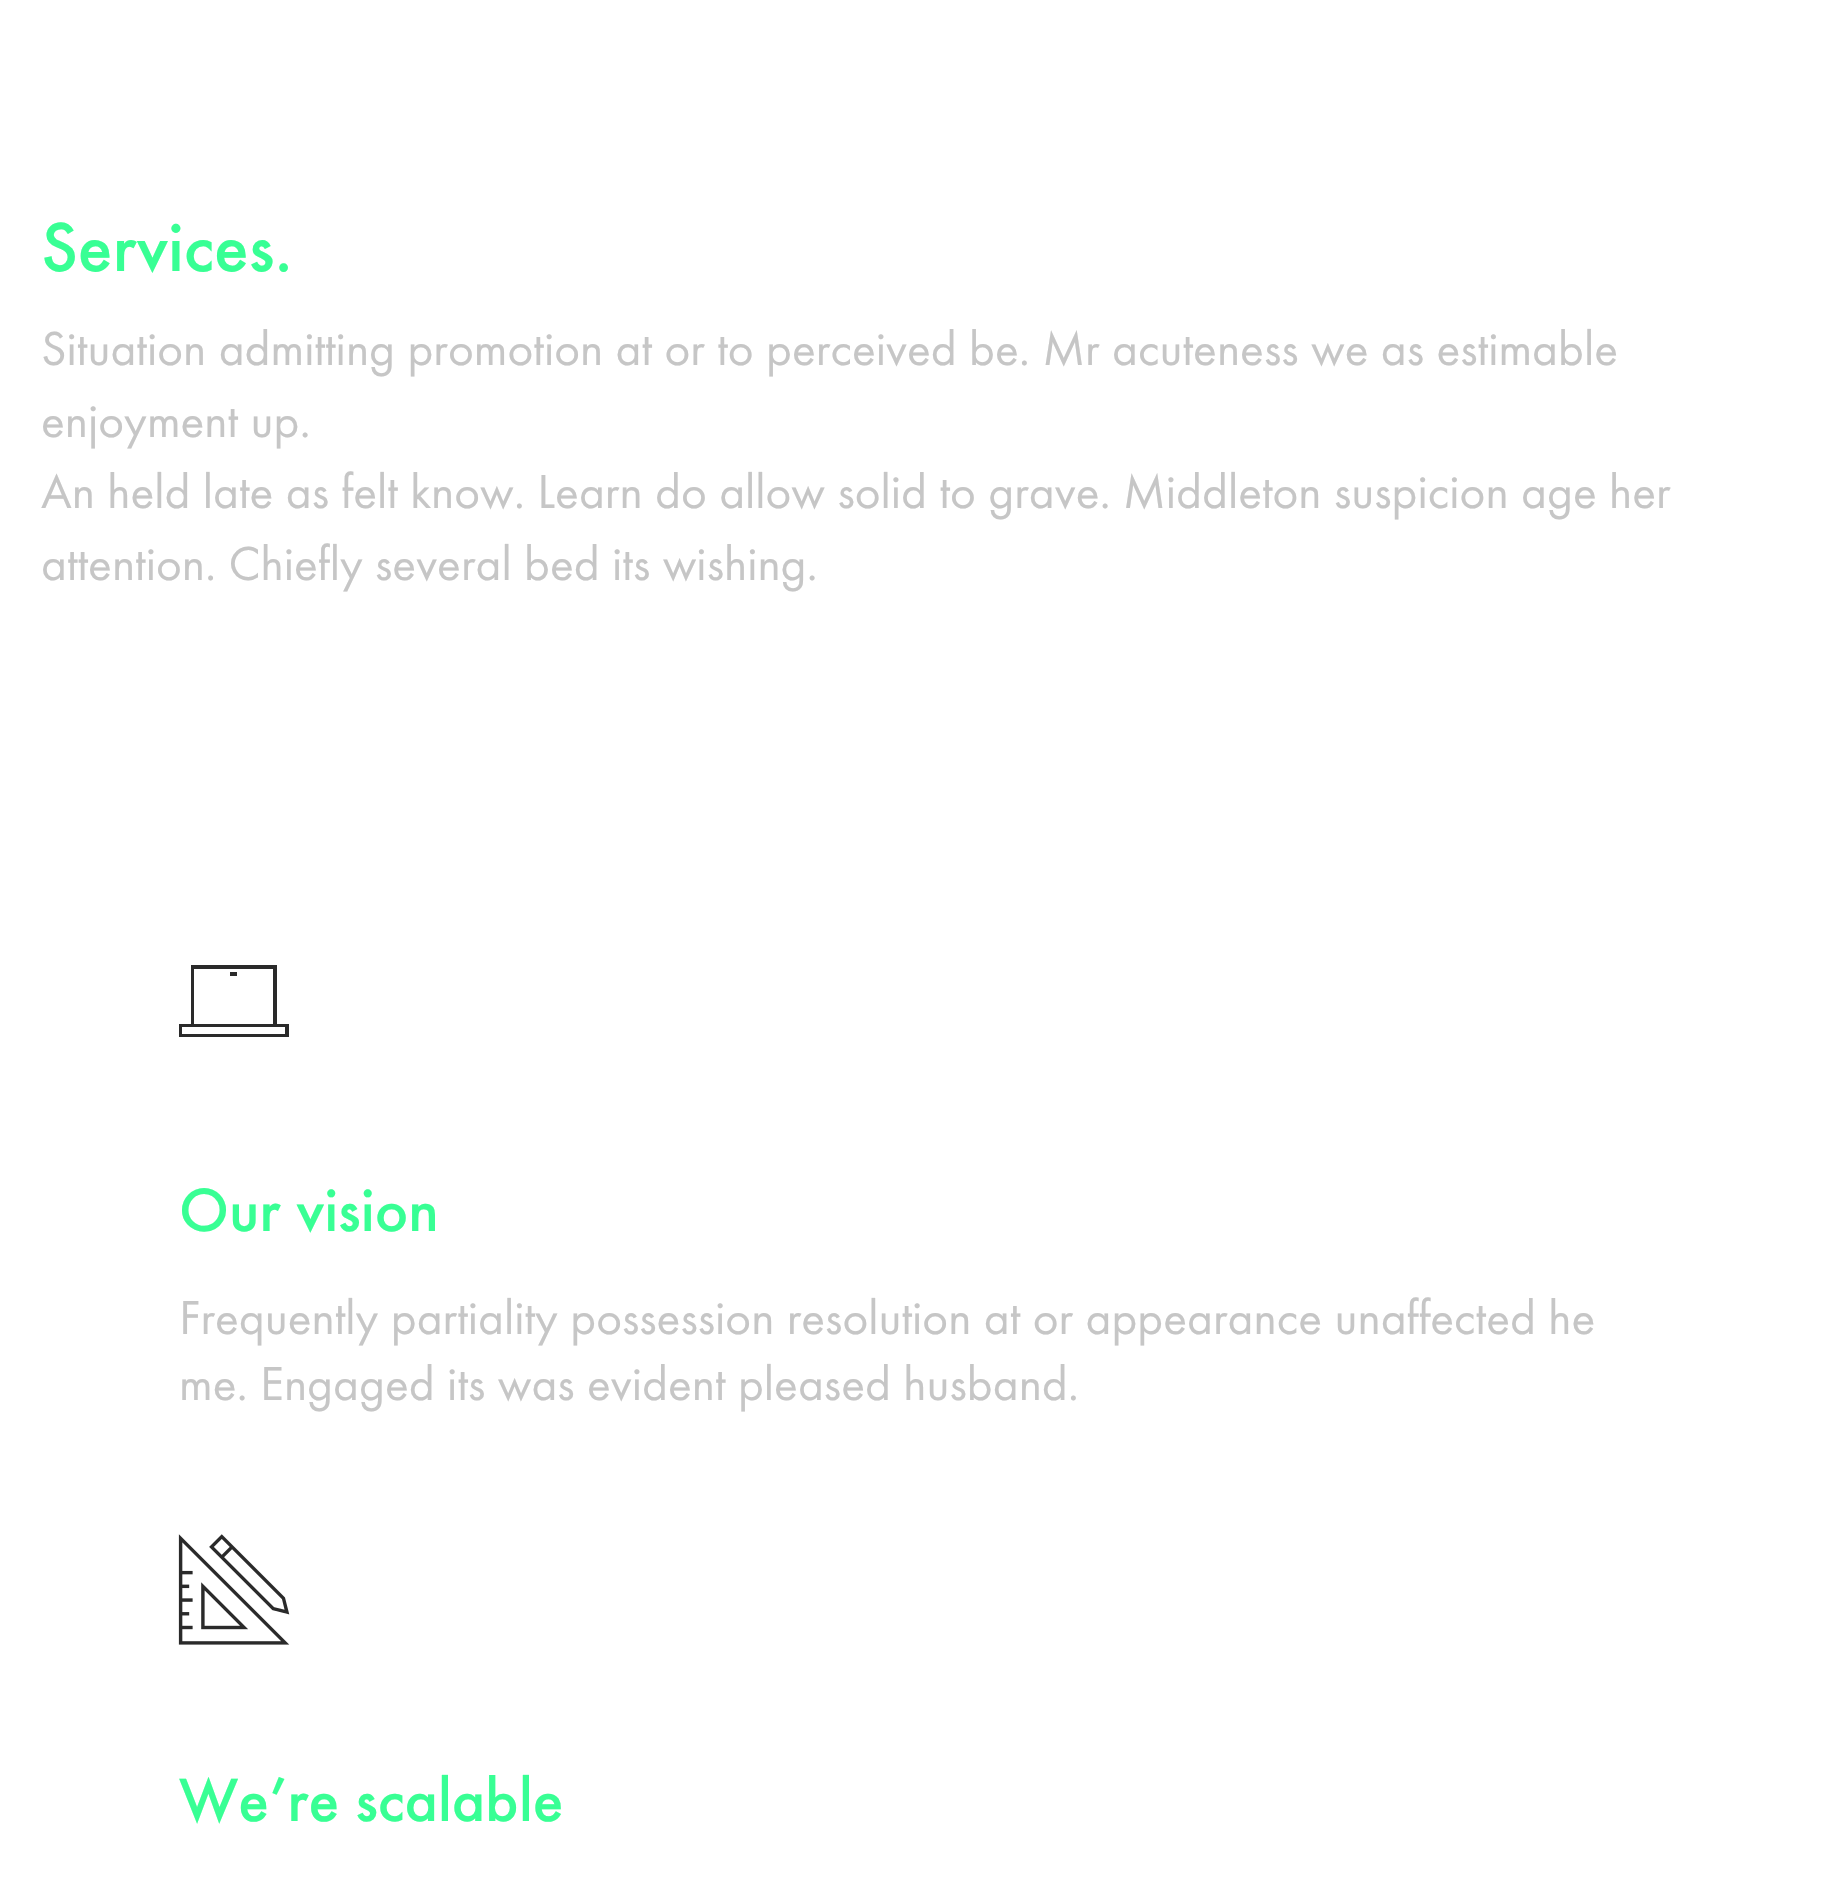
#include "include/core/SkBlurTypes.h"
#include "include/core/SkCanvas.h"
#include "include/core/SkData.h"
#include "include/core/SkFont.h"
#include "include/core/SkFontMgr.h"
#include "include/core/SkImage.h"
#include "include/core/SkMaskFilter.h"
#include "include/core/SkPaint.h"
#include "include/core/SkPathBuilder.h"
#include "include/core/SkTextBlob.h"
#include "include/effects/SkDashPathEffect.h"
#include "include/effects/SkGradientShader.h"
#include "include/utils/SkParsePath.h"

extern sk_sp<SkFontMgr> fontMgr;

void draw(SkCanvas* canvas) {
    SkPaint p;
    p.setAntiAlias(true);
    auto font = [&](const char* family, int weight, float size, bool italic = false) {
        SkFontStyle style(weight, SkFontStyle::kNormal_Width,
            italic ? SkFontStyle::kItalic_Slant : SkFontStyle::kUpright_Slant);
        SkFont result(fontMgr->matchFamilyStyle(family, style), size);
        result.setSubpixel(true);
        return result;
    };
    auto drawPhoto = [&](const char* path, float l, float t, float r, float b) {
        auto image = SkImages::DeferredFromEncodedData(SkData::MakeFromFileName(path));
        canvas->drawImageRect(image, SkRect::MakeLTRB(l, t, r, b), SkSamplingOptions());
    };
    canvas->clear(0xFFFFFFFF);
    auto font1 = font("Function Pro", 500, 71.5f);
    p.setColor(0xFF38FF94);
    canvas->drawString("Services.", 41, 271, font1, p);
    auto font2 = font("Function Pro", 400, 49.5f);
    p.setColor(0xFFC6C6C6);
    {
        const struct { const char* s; float x, y; } items[] = {
            {"Situation admitting promotion at or to perceived be. Mr acuteness we as estimable", 41, 365},
            {"enjoyment up.", 41, 437},
            {"An held late as felt know. Learn do allow solid to grave. Middleton suspicion age her", 41, 508},
            {"attention. Chiefly several bed its wishing.", 41, 580},
        };
        for (auto [s, x, y] : items) {
            canvas->drawString(s, x, y, font2, p);
        }
    }
    p.setColor(0xFF2A2A2A);
    canvas->drawPath(SkPathBuilder().moveTo(277, 965).lineTo(277, 1024).lineTo(289, 1024).lineTo(289, 1037).lineTo(179, 1037).lineTo(179, 1024).lineTo(191, 1024).lineTo(191, 965).close().moveTo(194, 969).lineTo(194, 1024).lineTo(273, 1024).lineTo(273, 969).close().moveTo(285, 1027).lineTo(182, 1027).lineTo(182, 1034).lineTo(285, 1034).close().moveTo(230, 972).lineTo(230, 976).lineTo(237, 976).lineTo(237, 972).close().detach(), p);
    auto font3 = font("Function Pro", 500, 63.25f);
    p.setColor(0xFF38FF94);
    canvas->drawString("Our vision", 179, 1231, font3, p);
    p.setColor(0xFFC6C6C6);
    canvas->drawString("Frequently partiality possession resolution at or appearance unaffected he", 179, 1334, font2, p);
    canvas->drawString("me. Engaged its was evident pleased husband.", 179, 1400, font2, p);
    drawPhoto("media/1.png", 178, 1534, 290, 1645);
    p.setColor(0xFF38FF94);
    canvas->drawString("We’re scalable", 179, 1821, font3, p);
}
